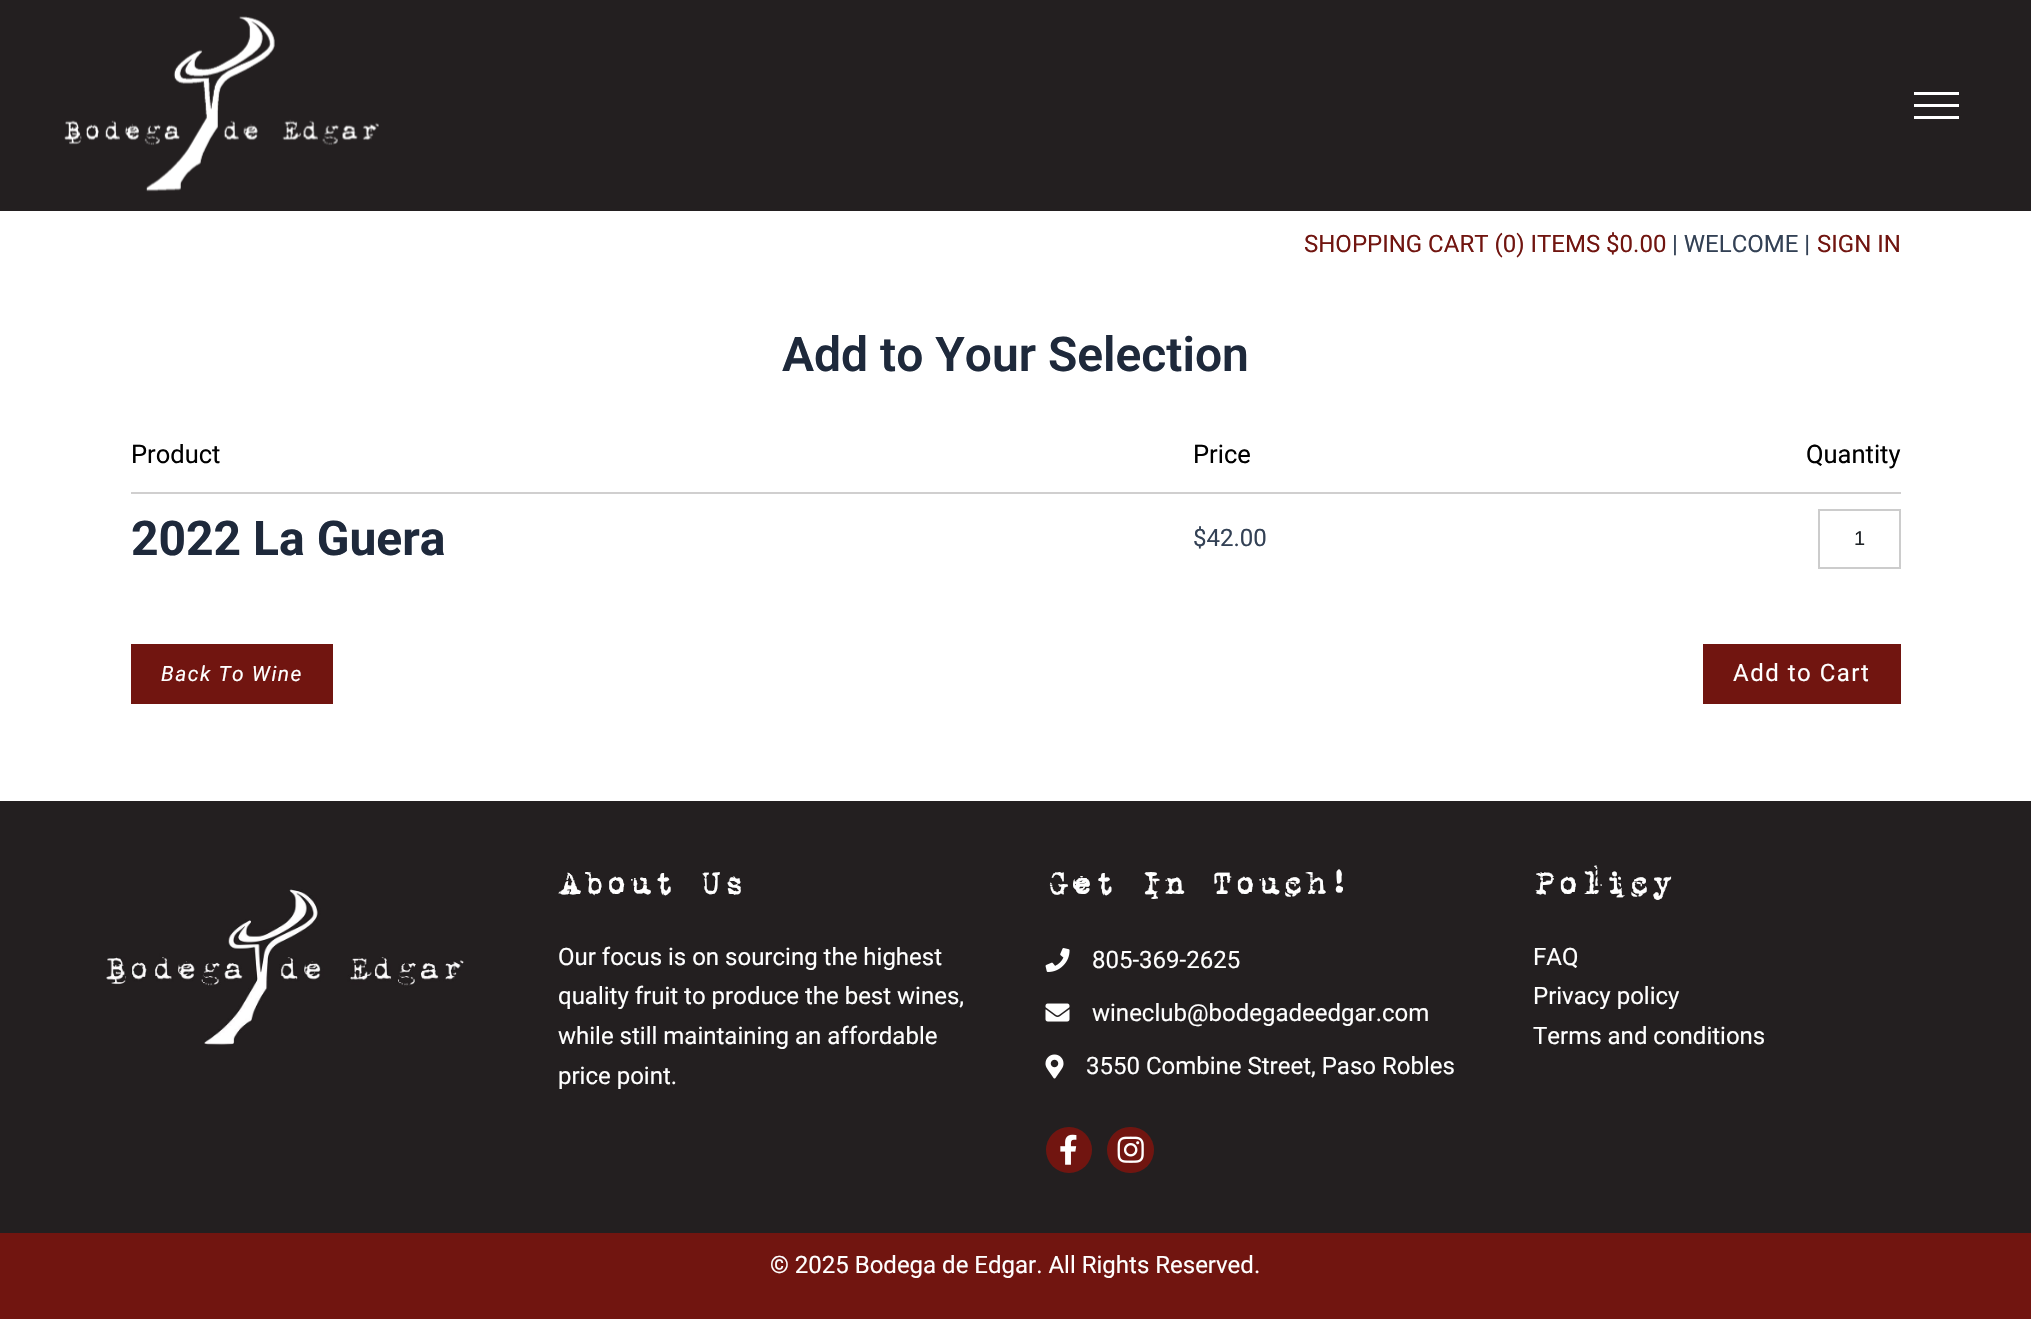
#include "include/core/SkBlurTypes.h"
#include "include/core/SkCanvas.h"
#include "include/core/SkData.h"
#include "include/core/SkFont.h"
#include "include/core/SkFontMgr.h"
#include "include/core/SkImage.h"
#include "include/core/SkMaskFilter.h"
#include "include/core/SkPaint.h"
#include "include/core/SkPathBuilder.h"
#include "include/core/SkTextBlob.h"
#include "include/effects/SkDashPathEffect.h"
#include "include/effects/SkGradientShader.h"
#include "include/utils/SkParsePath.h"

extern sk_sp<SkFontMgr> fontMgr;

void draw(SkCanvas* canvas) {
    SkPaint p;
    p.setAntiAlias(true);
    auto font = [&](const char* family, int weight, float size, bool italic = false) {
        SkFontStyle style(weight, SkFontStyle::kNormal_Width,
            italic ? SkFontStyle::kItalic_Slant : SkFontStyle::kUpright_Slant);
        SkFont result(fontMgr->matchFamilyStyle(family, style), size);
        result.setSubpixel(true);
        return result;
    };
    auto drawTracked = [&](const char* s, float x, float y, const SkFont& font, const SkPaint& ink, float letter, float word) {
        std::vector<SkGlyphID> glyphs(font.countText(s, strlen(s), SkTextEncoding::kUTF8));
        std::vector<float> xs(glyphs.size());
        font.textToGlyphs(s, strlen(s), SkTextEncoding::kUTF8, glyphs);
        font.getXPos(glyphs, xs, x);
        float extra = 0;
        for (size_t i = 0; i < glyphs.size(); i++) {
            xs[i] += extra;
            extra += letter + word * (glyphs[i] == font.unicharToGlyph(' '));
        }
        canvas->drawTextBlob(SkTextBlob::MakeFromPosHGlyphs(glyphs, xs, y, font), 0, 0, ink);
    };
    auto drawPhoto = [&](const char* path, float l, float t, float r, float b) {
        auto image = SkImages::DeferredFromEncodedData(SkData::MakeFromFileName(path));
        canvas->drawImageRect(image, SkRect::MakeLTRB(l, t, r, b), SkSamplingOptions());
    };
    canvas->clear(0xFFFFFFFF);
    p.setColor(0xFF231F20);
    canvas->drawRect(SkRect::MakeLTRB(0, 0, 2031, 211), p);
    drawPhoto("media/1.png", 64, 16, 379, 192);
    {
        const struct { float l, t, r, b; SkColor color; } items[] = {
            {1914, 92, 1959, 95, 0xFFFFFFFF},
            {1914, 104, 1959, 107, 0xFFFFFFFF},
            {1914, 116, 1959, 119, 0xFFFFFFFF},
        };
        for (auto [l, t, r, b, color] : items) {
            p.setColor(color);
            canvas->drawRect(SkRect::MakeLTRB(l, t, r, b), p);
        }
    }
    auto font1 = font("Roboto", 400, 24);
    p.setColor(0xFF711510);
    canvas->drawString("SHOPPING CART (0) ITEMS $0.00", 1304, 252, font1, p);
    p.setColor(0xFF334155);
    canvas->drawString("| WELCOME |", 1672, 252, font1, p);
    p.setColor(0xFF711510);
    canvas->drawString("SIGN IN", 1817, 252, font1, p);
    auto font2 = font("Roboto", 600, 48);
    p.setColor(0xFF1E293B);
    canvas->drawString("Add to Your Selection", 782, 371, font2, p);
    auto font3 = font("Roboto", 400, 25.5f);
    p.setColor(0xFF000000);
    {
        const struct { const char* s; float x, y; } items[] = {
            {"Product", 131, 463},
            {"Price", 1193, 463},
            {"Quantity", 1806, 463},
        };
        for (auto [s, x, y] : items) {
            canvas->drawString(s, x, y, font3, p);
        }
    }
    p.setColor(0xFFD0CFCF);
    canvas->drawRect(SkRect::MakeLTRB(131, 492, 1901, 494), p);
    auto font4 = font("Roboto", 700, 48);
    p.setColor(0xFF1E293B);
    canvas->drawString("2022 La Guera", 131, 555, font4, p);
    p.setColor(0xFF334155);
    canvas->drawString("$42.00", 1193, 546, font1, p);
    p.setStyle(SkPaint::kStroke_Style);
    p.setStrokeWidth(2);
    p.setColor(0xFFCCCCCC);
    canvas->drawRect(SkRect::MakeLTRB(1819, 510, 1900, 568), p);
    auto font5 = font("Liberation Sans", 400, 20);
    p.setStyle(SkPaint::kFill_Style);
    p.setColor(0xFF212529);
    canvas->drawString("1", 1854, 545, font5, p);
    p.setColor(0xFF711510);
    canvas->drawRect(SkRect::MakeLTRB(131, 644, 333, 704), p);
    auto font6 = font("Roboto", 400, 21, true);
    p.setColor(0xFFFFFFFF);
    drawTracked("Back To Wine", 161, 681, font6, p, 1.5f, 0);
    p.setColor(0xFF711510);
    canvas->drawRect(SkRect::MakeLTRB(1703, 644, 1901, 704), p);
    p.setColor(0xFFFFFFFF);
    drawTracked("Add to Cart", 1733, 681, font1, p, 1.5f, 0);
    p.setColor(0xFF231F20);
    canvas->drawRect(SkRect::MakeLTRB(0, 801, 2031, 1233), p);
    drawPhoto("media/2.png", 106, 889, 464, 1045);
    auto font7 = font("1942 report", 700, 36);
    p.setColor(0xFFFFFFFF);
    canvas->drawString("About Us", 558, 894, font7, p);
    {
        const struct { const char* s; float x, y; } items[] = {
            {"Our focus is on sourcing the highest", 558, 965},
            {"quality fruit to produce the best wines,", 558, 1004},
            {"while still maintaining an affordable", 558, 1044},
            {"price point.", 558, 1084},
        };
        for (auto [s, x, y] : items) {
            canvas->drawString(s, x, y, font1, p);
        }
    }
    canvas->drawString("Get In Touch!", 1046, 894, font7, p);
    drawPhoto("media/3.png", 1045, 948, 1070, 972);
    canvas->drawString("805-369-2625", 1092, 968, font1, p);
    drawPhoto("media/4.png", 1045, 1003, 1070, 1022);
    canvas->drawString("wineclub@bodegadeedgar.com", 1092, 1021, font1, p);
    drawPhoto("media/5.png", 1045, 1054, 1064, 1079);
    canvas->drawString("3550 Combine Street, Paso Robles", 1086, 1074, font1, p);
    p.setColor(0xFF711510);
    canvas->drawCircle(1069, 1150, 23, p);
    drawPhoto("media/6.png", 1060, 1134, 1077, 1165);
    canvas->drawRoundRect(SkRect::MakeLTRB(1107, 1127, 1154, 1173), 23, 23, p);
    drawPhoto("media/7.png", 1117, 1136, 1144, 1163);
    p.setColor(0xFFFFFFFF);
    canvas->drawString("Policy", 1533, 894, font7, p);
    {
        const struct { const char* s; float x, y; } items[] = {
            {"FAQ", 1533, 965},
            {"Privacy policy", 1533, 1004},
            {"Terms and conditions", 1533, 1044},
        };
        for (auto [s, x, y] : items) {
            canvas->drawString(s, x, y, font1, p);
        }
    }
    p.setColor(0xFF711510);
    canvas->drawRect(SkRect::MakeLTRB(0, 1233, 2031, 1319), p);
    p.setColor(0xFFFFFFFF);
    canvas->drawString("© 2025 Bodega de Edgar. All Rights Reserved.", 770, 1273, font1, p);
}
